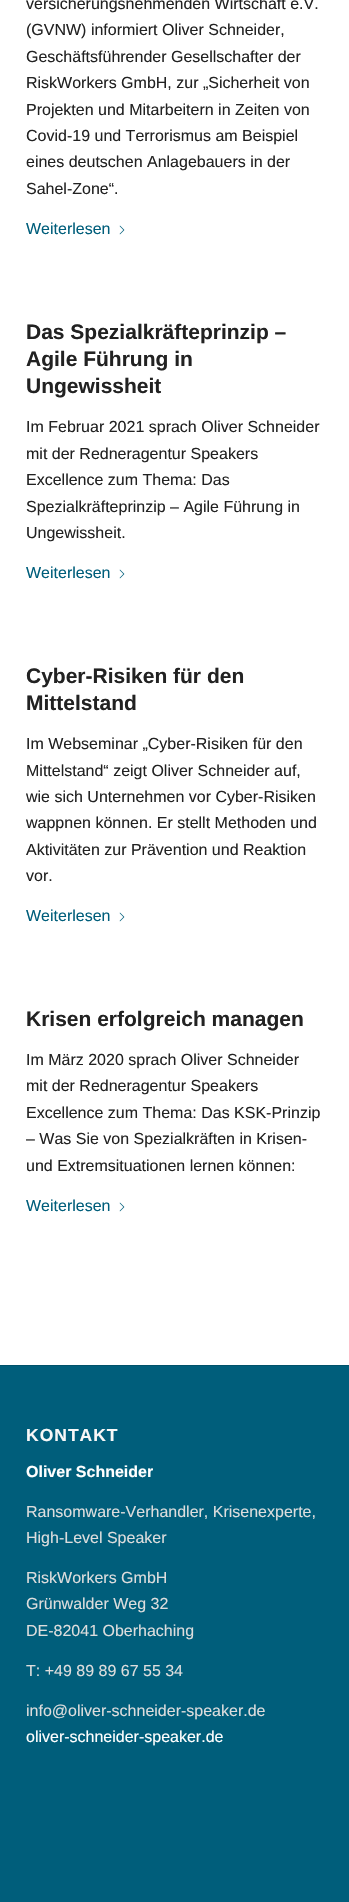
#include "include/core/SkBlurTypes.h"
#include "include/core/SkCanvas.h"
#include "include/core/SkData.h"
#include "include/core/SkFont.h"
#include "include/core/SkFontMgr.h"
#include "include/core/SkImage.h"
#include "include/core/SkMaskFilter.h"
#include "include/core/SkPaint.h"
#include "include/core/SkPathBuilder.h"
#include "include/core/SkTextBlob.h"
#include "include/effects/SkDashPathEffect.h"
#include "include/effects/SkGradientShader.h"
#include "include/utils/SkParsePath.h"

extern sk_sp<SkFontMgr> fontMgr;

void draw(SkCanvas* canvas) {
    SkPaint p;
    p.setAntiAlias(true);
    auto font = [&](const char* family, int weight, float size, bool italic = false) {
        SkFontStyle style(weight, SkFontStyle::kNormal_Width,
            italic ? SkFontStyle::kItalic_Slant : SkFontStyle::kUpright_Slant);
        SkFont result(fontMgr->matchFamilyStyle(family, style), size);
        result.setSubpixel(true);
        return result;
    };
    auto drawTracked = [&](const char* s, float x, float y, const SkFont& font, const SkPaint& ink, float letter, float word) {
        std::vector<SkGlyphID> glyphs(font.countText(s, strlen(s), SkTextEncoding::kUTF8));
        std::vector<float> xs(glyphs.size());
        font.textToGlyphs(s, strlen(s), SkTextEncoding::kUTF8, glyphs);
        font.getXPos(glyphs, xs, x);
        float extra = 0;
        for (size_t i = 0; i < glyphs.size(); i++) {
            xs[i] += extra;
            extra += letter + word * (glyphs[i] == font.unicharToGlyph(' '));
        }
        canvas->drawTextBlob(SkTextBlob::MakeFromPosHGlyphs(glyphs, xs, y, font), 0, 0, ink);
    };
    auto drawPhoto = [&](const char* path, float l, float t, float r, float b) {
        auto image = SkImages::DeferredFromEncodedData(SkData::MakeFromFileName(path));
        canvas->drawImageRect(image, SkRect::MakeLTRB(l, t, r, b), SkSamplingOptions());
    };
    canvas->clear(0xFFFFFFFF);
    auto font1 = font("Liberation Sans", 400, 16);
    p.setColor(0xFF222222);
    {
        const struct { const char* s; float x, y; } items[] = {
            {"versicherungsnehmenden Wirtschaft e.V.", 26, 9},
            {"(GVNW) informiert Oliver Schneider,", 26, 35},
            {"Geschäftsführender Gesellschafter der", 26, 62},
            {"RiskWorkers GmbH, zur „Sicherheit von", 26, 88},
            {"Projekten und Mitarbeitern in Zeiten von", 26, 115},
            {"Covid-19 und Terrorismus am Beispiel", 26, 141},
            {"eines deutschen Anlagebauers in der", 26, 167},
            {"Sahel-Zone“.", 26, 194},
        };
        for (auto [s, x, y] : items) {
            canvas->drawString(s, x, y, font1, p);
        }
    }
    p.setColor(0xFF005E7B);
    canvas->drawString("Weiterlesen", 26, 234, font1, p);
    drawPhoto("media/1.png", 119, 225, 125, 235);
    auto font2 = font("Liberation Sans", 700, 21);
    p.setColor(0xFF222222);
    {
        const struct { const char* s; float x, y; } items[] = {
            {"Das Spezialkräfteprinzip –", 26, 339},
            {"Agile Führung in", 26, 366},
            {"Ungewissheit", 26, 393},
        };
        for (auto [s, x, y] : items) {
            canvas->drawString(s, x, y, font2, p);
        }
    }
    {
        const struct { const char* s; float x, y; } items[] = {
            {"Im Februar 2021 sprach Oliver Schneider", 26, 432},
            {"mit der Redneragentur Speakers", 26, 459},
            {"Excellence zum Thema: Das", 26, 485},
            {"Spezialkräfteprinzip – Agile Führung in", 26, 512},
            {"Ungewissheit.", 26, 538},
        };
        for (auto [s, x, y] : items) {
            canvas->drawString(s, x, y, font1, p);
        }
    }
    p.setColor(0xFF005E7B);
    canvas->drawString("Weiterlesen", 26, 578, font1, p);
    drawPhoto("media/1.png", 119, 569, 125, 579);
    p.setColor(0xFF222222);
    canvas->drawString("Cyber-Risiken für den", 26, 683, font2, p);
    canvas->drawString("Mittelstand", 26, 710, font2, p);
    {
        const struct { const char* s; float x, y; } items[] = {
            {"Im Webseminar „Cyber-Risiken für den", 26, 749},
            {"Mittelstand“ zeigt Oliver Schneider auf,", 26, 776},
            {"wie sich Unternehmen vor Cyber-Risiken", 26, 802},
            {"wappnen können. Er stellt Methoden und", 26, 828},
            {"Aktivitäten zur Prävention und Reaktion", 26, 855},
            {"vor.", 26, 881},
        };
        for (auto [s, x, y] : items) {
            canvas->drawString(s, x, y, font1, p);
        }
    }
    p.setColor(0xFF005E7B);
    canvas->drawString("Weiterlesen", 26, 921, font1, p);
    drawPhoto("media/1.png", 119, 912, 125, 922);
    p.setColor(0xFF222222);
    canvas->drawString("Krisen erfolgreich managen", 26, 1026, font2, p);
    {
        const struct { const char* s; float x, y; } items[] = {
            {"Im März 2020 sprach Oliver Schneider", 26, 1065},
            {"mit der Redneragentur Speakers", 26, 1091},
            {"Excellence zum Thema: Das KSK-Prinzip", 26, 1118},
            {"– Was Sie von Spezialkräften in Krisen-", 26, 1144},
            {"und Extremsituationen lernen können:", 26, 1171},
        };
        for (auto [s, x, y] : items) {
            canvas->drawString(s, x, y, font1, p);
        }
    }
    p.setColor(0xFF005E7B);
    canvas->drawString("Weiterlesen", 26, 1211, font1, p);
    drawPhoto("media/1.png", 119, 1202, 125, 1212);
    canvas->drawRect(SkRect::MakeLTRB(0, 1366, 349, 1902), p);
    p.setColor(0xFF00516A);
    canvas->drawRect(SkRect::MakeLTRB(0, 1365, 349, 1366), p);
    auto font3 = font("Liberation Sans", 700, 17.5f);
    p.setColor(0xFFF8F8F8);
    drawTracked("KONTAKT", 26, 1441, font3, p, 1, 0);
    auto font4 = font("Liberation Sans", 700, 16);
    p.setColor(0xFFFFFFFF);
    canvas->drawString("Oliver Schneider", 26, 1477, font4, p);
    p.setColor(0xFFDDDDDD);
    {
        const struct { const char* s; float x, y; } items[] = {
            {"Ransomware-Verhandler, Krisenexperte,", 26, 1517},
            {"High-Level Speaker", 26, 1543},
            {"RiskWorkers GmbH", 26, 1583},
            {"Grünwalder Weg 32", 26, 1609},
            {"DE-82041 Oberhaching", 26, 1636},
            {"T: +49 89 89 67 55 34", 26, 1676},
            {"info@oliver-schneider-speaker.de", 26, 1716},
        };
        for (auto [s, x, y] : items) {
            canvas->drawString(s, x, y, font1, p);
        }
    }
    p.setColor(0xFFFFFFFF);
    canvas->drawString("oliver-schneider-speaker.de", 26, 1742, font1, p);
}
